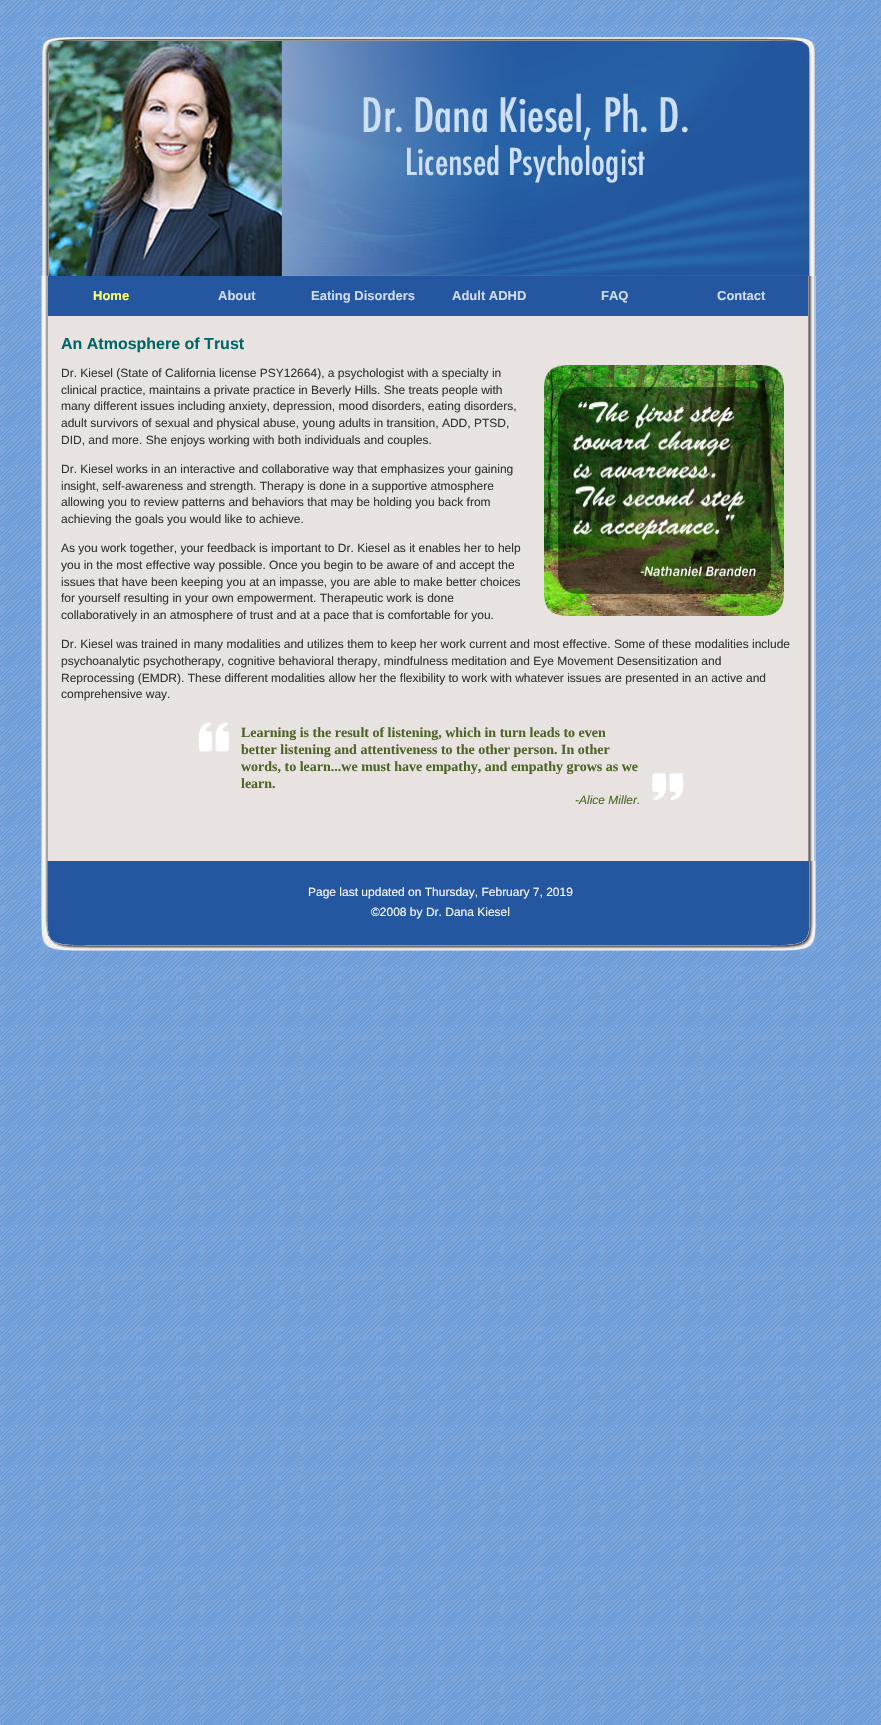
#include "include/core/SkBlurTypes.h"
#include "include/core/SkCanvas.h"
#include "include/core/SkData.h"
#include "include/core/SkFont.h"
#include "include/core/SkFontMgr.h"
#include "include/core/SkImage.h"
#include "include/core/SkMaskFilter.h"
#include "include/core/SkPaint.h"
#include "include/core/SkPathBuilder.h"
#include "include/core/SkTextBlob.h"
#include "include/effects/SkDashPathEffect.h"
#include "include/effects/SkGradientShader.h"
#include "include/utils/SkParsePath.h"

extern sk_sp<SkFontMgr> fontMgr;

void draw(SkCanvas* canvas) {
    SkPaint p;
    p.setAntiAlias(true);
    auto font = [&](const char* family, int weight, float size, bool italic = false) {
        SkFontStyle style(weight, SkFontStyle::kNormal_Width,
            italic ? SkFontStyle::kItalic_Slant : SkFontStyle::kUpright_Slant);
        SkFont result(fontMgr->matchFamilyStyle(family, style), size);
        result.setSubpixel(true);
        return result;
    };
    auto drawPhoto = [&](const char* path, float l, float t, float r, float b) {
        auto image = SkImages::DeferredFromEncodedData(SkData::MakeFromFileName(path));
        canvas->drawImageRect(image, SkRect::MakeLTRB(l, t, r, b), SkSamplingOptions());
    };
    canvas->clear(0xFFFFFFFF);
    drawPhoto("media/1.png", 0, 0, 881, 1725);
    drawPhoto("media/2.png", 42, 37, 815, 276);
    drawPhoto("media/3.png", 41, 276, 816, 861);
    p.setColor(0xFF2557A0);
    canvas->drawRect(SkRect::MakeLTRB(48, 276, 808, 316), p);
    auto font1 = font("Liberation Sans", 700, 13);
    p.setColor(0xFFFFFF66);
    canvas->drawString("Home", 93, 300, font1, p);
    p.setColor(0xFFD0DCEF);
    {
        const struct { const char* s; float x, y; } items[] = {
            {"About", 218, 300},
            {"Eating Disorders", 311, 300},
            {"Adult ADHD", 452, 300},
            {"FAQ", 601, 300},
            {"Contact", 717, 300},
        };
        for (auto [s, x, y] : items) {
            canvas->drawString(s, x, y, font1, p);
        }
    }
    auto font2 = font("Liberation Sans", 700, 16);
    p.setColor(0xFF006666);
    canvas->drawString("An Atmosphere of Trust", 61, 349, font2, p);
    auto font3 = font("Liberation Sans", 400, 12);
    p.setColor(0xFF333333);
    canvas->drawString("Dr. Kiesel (State of California license PSY12664), a psychologist with a specialty in", 61, 377, font3, p);
    drawPhoto("media/4.png", 544, 365, 784, 616);
    {
        const struct { const char* s; float x, y; } items[] = {
            {"clinical practice, maintains a private practice in Beverly Hills. She treats people with", 61, 394},
            {"many different issues including anxiety, depression, mood disorders, eating disorders,", 61, 410},
            {"adult survivors of sexual and physical abuse, young adults in transition, ADD, PTSD,", 61, 427},
            {"DID, and more. She enjoys working with both individuals and couples.", 61, 444},
            {"Dr. Kiesel works in an interactive and collaborative way that emphasizes your gaining", 61, 473},
            {"insight, self-awareness and strength. Therapy is done in a supportive atmosphere", 61, 490},
            {"allowing you to review patterns and behaviors that may be holding you back from", 61, 506},
            {"achieving the goals you would like to achieve.", 61, 523},
            {"As you work together, your feedback is important to Dr. Kiesel as it enables her to help", 61, 552},
            {"you in the most effective way possible. Once you begin to be aware of and accept the", 61, 569},
            {"issues that have been keeping you at an impasse, you are able to make better choices", 61, 586},
            {"for yourself resulting in your own empowerment. Therapeutic work is done", 61, 602},
            {"collaboratively in an atmosphere of trust and at a pace that is comfortable for you.", 61, 619},
            {"Dr. Kiesel was trained in many modalities and utilizes them to keep her work current and most effective. Some of these modalities include", 61, 648},
            {"psychoanalytic psychotherapy, cognitive behavioral therapy, mindfulness meditation and Eye Movement Desensitization and", 61, 665},
            {"Reprocessing (EMDR). These different modalities allow her the flexibility to work with whatever issues are presented in an active and", 61, 682},
            {"comprehensive way.", 61, 698},
        };
        for (auto [s, x, y] : items) {
            canvas->drawString(s, x, y, font3, p);
        }
    }
    drawPhoto("media/5.png", 652, 773, 684, 800);
    drawPhoto("media/6.png", 191, 717, 236, 757);
    auto font4 = font("Liberation Serif", 700, 14);
    p.setColor(0xFF4E6426);
    {
        const struct { const char* s; float x, y; } items[] = {
            {"Learning is the result of listening, which in turn leads to even", 241, 737},
            {"better listening and attentiveness to the other person. In other", 241, 754},
            {"words, to learn...we must have empathy, and empathy grows as we", 241, 771},
            {"learn.", 241, 788},
        };
        for (auto [s, x, y] : items) {
            canvas->drawString(s, x, y, font4, p);
        }
    }
    auto font5 = font("Liberation Sans", 400, 12, true);
    canvas->drawString("-Alice Miller.", 575, 804, font5, p);
    drawPhoto("media/7.png", 41, 861, 816, 951);
    p.setColor(0xFFF9F9F9);
    canvas->drawString("Page last updated on Thursday, February 7, 2019", 308, 896, font3, p);
    canvas->drawString("©2008 by Dr. Dana Kiesel", 371, 916, font3, p);
}
